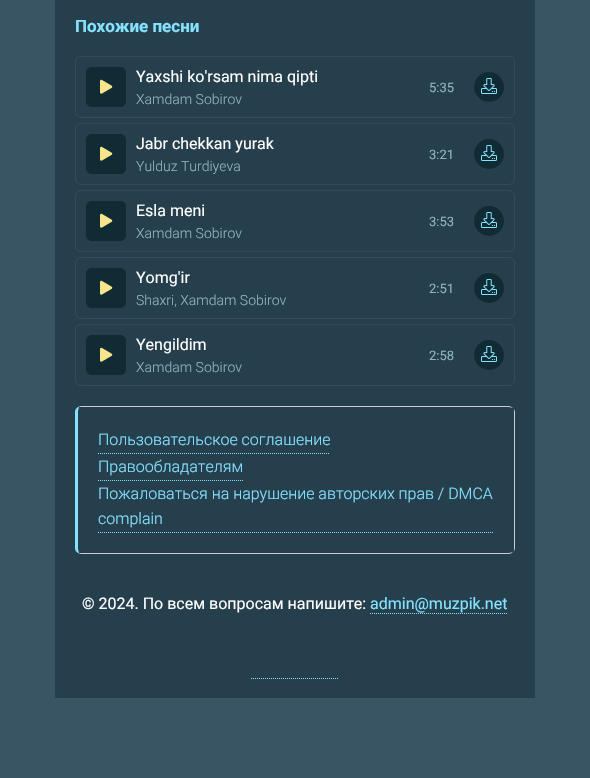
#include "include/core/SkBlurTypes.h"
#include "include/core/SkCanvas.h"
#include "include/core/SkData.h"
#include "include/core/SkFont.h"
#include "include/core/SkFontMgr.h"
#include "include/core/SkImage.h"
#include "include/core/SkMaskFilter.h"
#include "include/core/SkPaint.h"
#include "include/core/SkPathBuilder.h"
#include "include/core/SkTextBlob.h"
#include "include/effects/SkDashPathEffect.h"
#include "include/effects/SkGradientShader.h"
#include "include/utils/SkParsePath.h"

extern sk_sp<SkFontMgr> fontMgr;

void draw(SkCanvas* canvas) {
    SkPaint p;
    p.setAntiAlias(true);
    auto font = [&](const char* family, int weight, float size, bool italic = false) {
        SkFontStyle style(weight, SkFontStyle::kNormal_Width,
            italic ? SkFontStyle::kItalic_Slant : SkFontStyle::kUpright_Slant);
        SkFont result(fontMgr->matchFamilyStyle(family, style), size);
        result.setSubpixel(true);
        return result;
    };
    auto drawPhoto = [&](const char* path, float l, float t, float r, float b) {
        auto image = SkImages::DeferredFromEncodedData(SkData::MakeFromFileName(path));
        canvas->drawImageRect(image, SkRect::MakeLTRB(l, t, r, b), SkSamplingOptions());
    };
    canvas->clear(0xFF395462);
    p.setColor(0xFF263F4D);
    canvas->drawRect(SkRect::MakeLTRB(55, 0, 535, 698), p);
    auto font1 = font("Roboto", 700, 17);
    p.setColor(0xFF85E2FF);
    canvas->drawString("Похожие песни", 75, 32, font1, p);
    p.setStyle(SkPaint::kStroke_Style);
    p.setStrokeWidth(1);
    p.setColor(0xFF344C59);
    canvas->drawRoundRect(SkRect::MakeLTRB(75.5f, 56.5f, 514.5f, 117.5f), 5.5f, 5.5f, p);
    drawPhoto("media/1.png", 86, 67, 126, 107);
    p.setStyle(SkPaint::kFill_Style);
    p.setColor(0xFF102B33);
    canvas->drawRoundRect(SkRect::MakeLTRB(86, 67, 126, 107), 6, 6, p);
    drawPhoto("media/2.png", 100, 79, 113, 94);
    auto font2 = font("Roboto", 400, 16);
    p.setColor(0xFFFFFFFF);
    canvas->drawString("Yaxshi ko'rsam nima qipti", 136, 82, font2, p);
    auto font3 = font("Roboto", 300, 14);
    p.setColor(0xFF91B4BF);
    canvas->drawString("Xamdam Sobirov", 136, 104, font3, p);
    auto font4 = font("Roboto", 400, 13);
    canvas->drawString("5:35", 429, 92, font4, p);
    p.setColor(0xFF102B33);
    canvas->drawCircle(489, 87, 15, p);
    drawPhoto("media/3.png", 481, 78, 497, 94);
    p.setStyle(SkPaint::kStroke_Style);
    p.setColor(0xFF344C59);
    canvas->drawRoundRect(SkRect::MakeLTRB(75.5f, 123.5f, 514.5f, 184.5f), 5.5f, 5.5f, p);
    drawPhoto("media/1.png", 86, 134, 126, 174);
    p.setStyle(SkPaint::kFill_Style);
    p.setColor(0xFF102B33);
    canvas->drawRoundRect(SkRect::MakeLTRB(86, 134, 126, 174), 6, 6, p);
    drawPhoto("media/2.png", 100, 146, 113, 161);
    p.setColor(0xFFFFFFFF);
    canvas->drawString("Jabr chekkan yurak", 136, 149, font2, p);
    p.setColor(0xFF91B4BF);
    canvas->drawString("Yulduz Turdiyeva", 136, 171, font3, p);
    canvas->drawString("3:21", 429, 159, font4, p);
    p.setColor(0xFF102B33);
    canvas->drawCircle(489, 154, 15, p);
    drawPhoto("media/3.png", 481, 145, 497, 161);
    p.setStyle(SkPaint::kStroke_Style);
    p.setColor(0xFF344C59);
    canvas->drawRoundRect(SkRect::MakeLTRB(75.5f, 190.5f, 514.5f, 251.5f), 5.5f, 5.5f, p);
    drawPhoto("media/1.png", 86, 201, 126, 241);
    p.setStyle(SkPaint::kFill_Style);
    p.setColor(0xFF102B33);
    canvas->drawRoundRect(SkRect::MakeLTRB(86, 201, 126, 241), 6, 6, p);
    drawPhoto("media/2.png", 100, 213, 113, 228);
    p.setColor(0xFFFFFFFF);
    canvas->drawString("Esla meni", 136, 216, font2, p);
    p.setColor(0xFF91B4BF);
    canvas->drawString("Xamdam Sobirov", 136, 238, font3, p);
    canvas->drawString("3:53", 429, 226, font4, p);
    p.setColor(0xFF102B33);
    canvas->drawCircle(489, 221, 15, p);
    drawPhoto("media/3.png", 481, 212, 497, 228);
    p.setStyle(SkPaint::kStroke_Style);
    p.setColor(0xFF344C59);
    canvas->drawRoundRect(SkRect::MakeLTRB(75.5f, 257.5f, 514.5f, 318.5f), 5.5f, 5.5f, p);
    drawPhoto("media/1.png", 86, 268, 126, 308);
    p.setStyle(SkPaint::kFill_Style);
    p.setColor(0xFF102B33);
    canvas->drawRoundRect(SkRect::MakeLTRB(86, 268, 126, 308), 6, 6, p);
    drawPhoto("media/2.png", 100, 280, 113, 295);
    p.setColor(0xFFFFFFFF);
    canvas->drawString("Yomg'ir", 136, 283, font2, p);
    p.setColor(0xFF91B4BF);
    canvas->drawString("Shaxri, Xamdam Sobirov", 136, 305, font3, p);
    canvas->drawString("2:51", 429, 293, font4, p);
    p.setColor(0xFF102B33);
    canvas->drawCircle(489, 288, 15, p);
    drawPhoto("media/3.png", 481, 279, 497, 295);
    p.setStyle(SkPaint::kStroke_Style);
    p.setColor(0xFF344C59);
    canvas->drawRoundRect(SkRect::MakeLTRB(75.5f, 324.5f, 514.5f, 385.5f), 5.5f, 5.5f, p);
    drawPhoto("media/1.png", 86, 335, 126, 375);
    p.setStyle(SkPaint::kFill_Style);
    p.setColor(0xFF102B33);
    canvas->drawRoundRect(SkRect::MakeLTRB(86, 335, 126, 375), 6, 6, p);
    drawPhoto("media/2.png", 100, 347, 113, 362);
    p.setColor(0xFFFFFFFF);
    canvas->drawString("Yengildim", 136, 350, font2, p);
    p.setColor(0xFF91B4BF);
    canvas->drawString("Xamdam Sobirov", 136, 372, font3, p);
    canvas->drawString("2:58", 429, 360, font4, p);
    p.setColor(0xFF102B33);
    canvas->drawCircle(489, 355, 15, p);
    drawPhoto("media/3.png", 481, 346, 497, 362);
    p.setColor(0xFFCCCCCC);
    canvas->drawPath(SkPathBuilder().moveTo(81, 406).lineTo(78, 407).lineTo(79, 407).lineTo(81, 407).lineTo(509, 407).cubicTo(510, 407, 512, 408, 513, 408).cubicTo(512, 407, 510, 406, 509, 406).close().detach(), p);
    canvas->drawPath(SkPathBuilder().moveTo(515, 548).lineTo(515, 411).lineTo(513, 408).cubicTo(514, 409, 514, 410, 514, 412).lineTo(514, 548).cubicTo(514, 550, 514, 551, 513, 552).cubicTo(514, 551, 515, 550, 515, 548).close().detach(), p);
    canvas->drawPath(SkPathBuilder().moveTo(81, 554).lineTo(509, 554).cubicTo(510, 554, 512, 553, 513, 552).cubicTo(512, 552, 510, 553, 509, 553).lineTo(81, 553).lineTo(79, 553).lineTo(78, 553).close().detach(), p);
    p.setColor(0xFF85E2FF);
    canvas->drawPath(SkPathBuilder().moveTo(75, 412).lineTo(75, 548).cubicTo(75, 550, 76, 552, 78, 553).lineTo(79, 553).lineTo(78, 549).lineTo(78, 411).lineTo(79, 407).lineTo(78, 407).cubicTo(76, 408, 75, 410, 75, 412).close().detach(), p);
    p.setStyle(SkPaint::kStroke_Style);
    p.setPathEffect(SkDashPathEffect::Make({{1, 1}}, 0));
    canvas->drawPath(SkPathBuilder().moveTo(98, 453.5f).lineTo(330, 453.5f).detach(), p);
    p.setPathEffect(nullptr);
    auto font5 = font("Roboto", 300, 16);
    p.setStyle(SkPaint::kFill_Style);
    canvas->drawString("Пользовательское соглашение", 98, 445, font5, p);
    p.setStyle(SkPaint::kStroke_Style);
    p.setPathEffect(SkDashPathEffect::Make({{1, 1}}, 0));
    canvas->drawPath(SkPathBuilder().moveTo(98, 480.5f).lineTo(243, 480.5f).detach(), p);
    p.setPathEffect(nullptr);
    p.setStyle(SkPaint::kFill_Style);
    canvas->drawString("Правообладателям", 98, 472, font5, p);
    p.setStyle(SkPaint::kStroke_Style);
    p.setPathEffect(SkDashPathEffect::Make({{1, 1}}, 0));
    canvas->drawPath(SkPathBuilder().moveTo(98, 532.5f).lineTo(494, 532.5f).detach(), p);
    p.setPathEffect(nullptr);
    p.setStyle(SkPaint::kFill_Style);
    canvas->drawString("Пожаловаться на нарушение авторских прав / DMCA", 98, 499, font5, p);
    canvas->drawString("complain", 98, 524, font5, p);
    p.setColor(0xFFFFFFFF);
    canvas->drawString("© 2024. По всем вопросам напишите:", 82, 609, font2, p);
    p.setColor(0xFF85E2FF);
    canvas->drawString("admin@muzpik.net", 370, 609, font2, p);
    p.setStyle(SkPaint::kStroke_Style);
    p.setPathEffect(SkDashPathEffect::Make({{1, 1}}, 0));
    canvas->drawPath(SkPathBuilder().moveTo(370, 613.5f).lineTo(508, 613.5f).detach(), p);
    p.setPathEffect(nullptr);
    p.setPathEffect(SkDashPathEffect::Make({{1, 1}}, 0));
    canvas->drawPath(SkPathBuilder().moveTo(251, 678.5f).lineTo(339, 678.5f).detach(), p);
    p.setPathEffect(nullptr);
}
